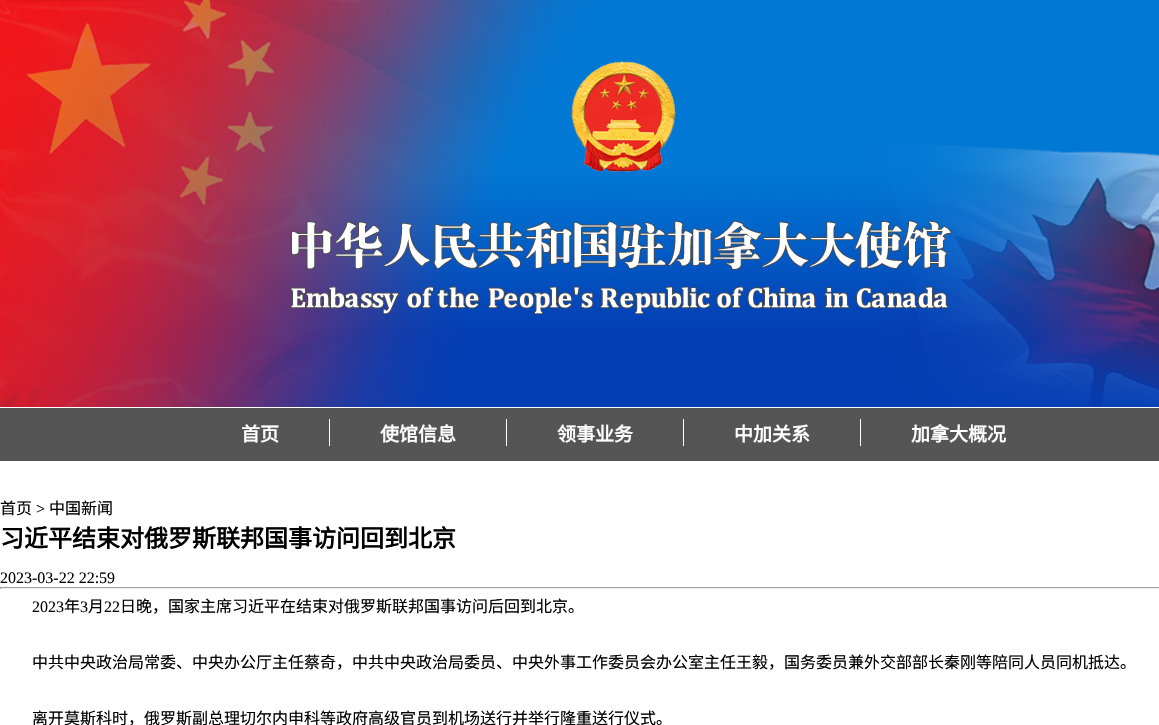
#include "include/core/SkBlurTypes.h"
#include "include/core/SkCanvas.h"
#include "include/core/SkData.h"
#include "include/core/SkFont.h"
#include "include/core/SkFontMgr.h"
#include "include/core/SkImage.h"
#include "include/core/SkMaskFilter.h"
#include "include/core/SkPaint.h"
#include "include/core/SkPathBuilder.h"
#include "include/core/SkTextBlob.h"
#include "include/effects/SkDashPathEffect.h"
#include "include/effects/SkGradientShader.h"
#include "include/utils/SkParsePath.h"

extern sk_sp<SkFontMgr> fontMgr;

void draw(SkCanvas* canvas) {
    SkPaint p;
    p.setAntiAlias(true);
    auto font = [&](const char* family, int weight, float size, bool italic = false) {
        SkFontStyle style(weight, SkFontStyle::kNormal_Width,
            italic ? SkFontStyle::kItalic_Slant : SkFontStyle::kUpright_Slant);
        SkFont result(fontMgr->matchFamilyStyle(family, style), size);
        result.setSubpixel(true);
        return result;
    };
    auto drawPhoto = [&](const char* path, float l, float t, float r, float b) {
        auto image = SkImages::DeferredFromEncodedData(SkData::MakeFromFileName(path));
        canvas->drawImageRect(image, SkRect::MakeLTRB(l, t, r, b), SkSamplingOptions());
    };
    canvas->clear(0xFFFFFFFF);
    drawPhoto("media/1.png", 0, 0, 1159, 407);
    p.setColor(0xFF555555);
    canvas->drawRect(SkRect::MakeLTRB(0, 408, 1159, 461), p);
    p.setColor(0xFFFFFFFF);
    canvas->drawRect(SkRect::MakeLTRB(329, 419, 330, 446), p);
    auto font1 = font("Noto Sans CJK SC", 700, 19);
    canvas->drawString("首页", 241, 441, font1, p);
    canvas->drawRect(SkRect::MakeLTRB(506, 419, 507, 446), p);
    canvas->drawString("使馆信息", 380, 441, font1, p);
    canvas->drawRect(SkRect::MakeLTRB(683, 419, 684, 446), p);
    canvas->drawString("领事业务", 557, 441, font1, p);
    canvas->drawRect(SkRect::MakeLTRB(860, 419, 861, 446), p);
    canvas->drawString("中加关系", 734, 441, font1, p);
    canvas->drawString("加拿大概况", 911, 441, font1, p);
    auto font2 = font("Noto Sans CJK SC", 400, 16);
    p.setColor(0xFF000000);
    canvas->drawString("首页", 0, 514, font2, p);
    auto font3 = font("Liberation Serif", 400, 16);
    canvas->drawString(">", 36, 514, font3, p);
    canvas->drawString("中国新闻", 49, 514, font2, p);
    auto font4 = font("Noto Sans CJK SC", 700, 24);
    canvas->drawString("习近平结束对俄罗斯联邦国事访问回到北京", 0, 547, font4, p);
    canvas->drawString("2023-03-22 22:59", 0, 583, font3, p);
    {
        const struct { float l, t, r, b; SkColor color; } items[] = {
            {0, 587, 1159, 588, 0xFF9F9F9F},
            {0, 588, 1159, 589, 0xFFEEEEEE},
            {0, 587, 1, 589, 0xFF9F9F9F},
        };
        for (auto [l, t, r, b, color] : items) {
            p.setColor(color);
            canvas->drawRect(SkRect::MakeLTRB(l, t, r, b), p);
        }
    }
    p.setColor(0xFF000000);
    canvas->drawString("2023", 32, 612, font3, p);
    canvas->drawString("年", 64, 612, font2, p);
    canvas->drawString("3", 80, 612, font3, p);
    canvas->drawString("月", 88, 612, font2, p);
    canvas->drawString("22", 104, 612, font3, p);
    {
        const struct { const char* s; float x, y; } items[] = {
            {"日晚，国家主席习近平在结束对俄罗斯联邦国事访问后回到北京。", 120, 612},
            {"中共中央政治局常委、中央办公厅主任蔡奇，中共中央政治局委员、中央外事工作委员会办公室主任王毅，国务委员兼外交部部长秦刚等陪同人员同机抵达。", 32, 668},
            {"离开莫斯科时，俄罗斯副总理切尔内申科等政府高级官员到机场送行并举行隆重送行仪式。", 32, 724},
        };
        for (auto [s, x, y] : items) {
            canvas->drawString(s, x, y, font2, p);
        }
    }
}
